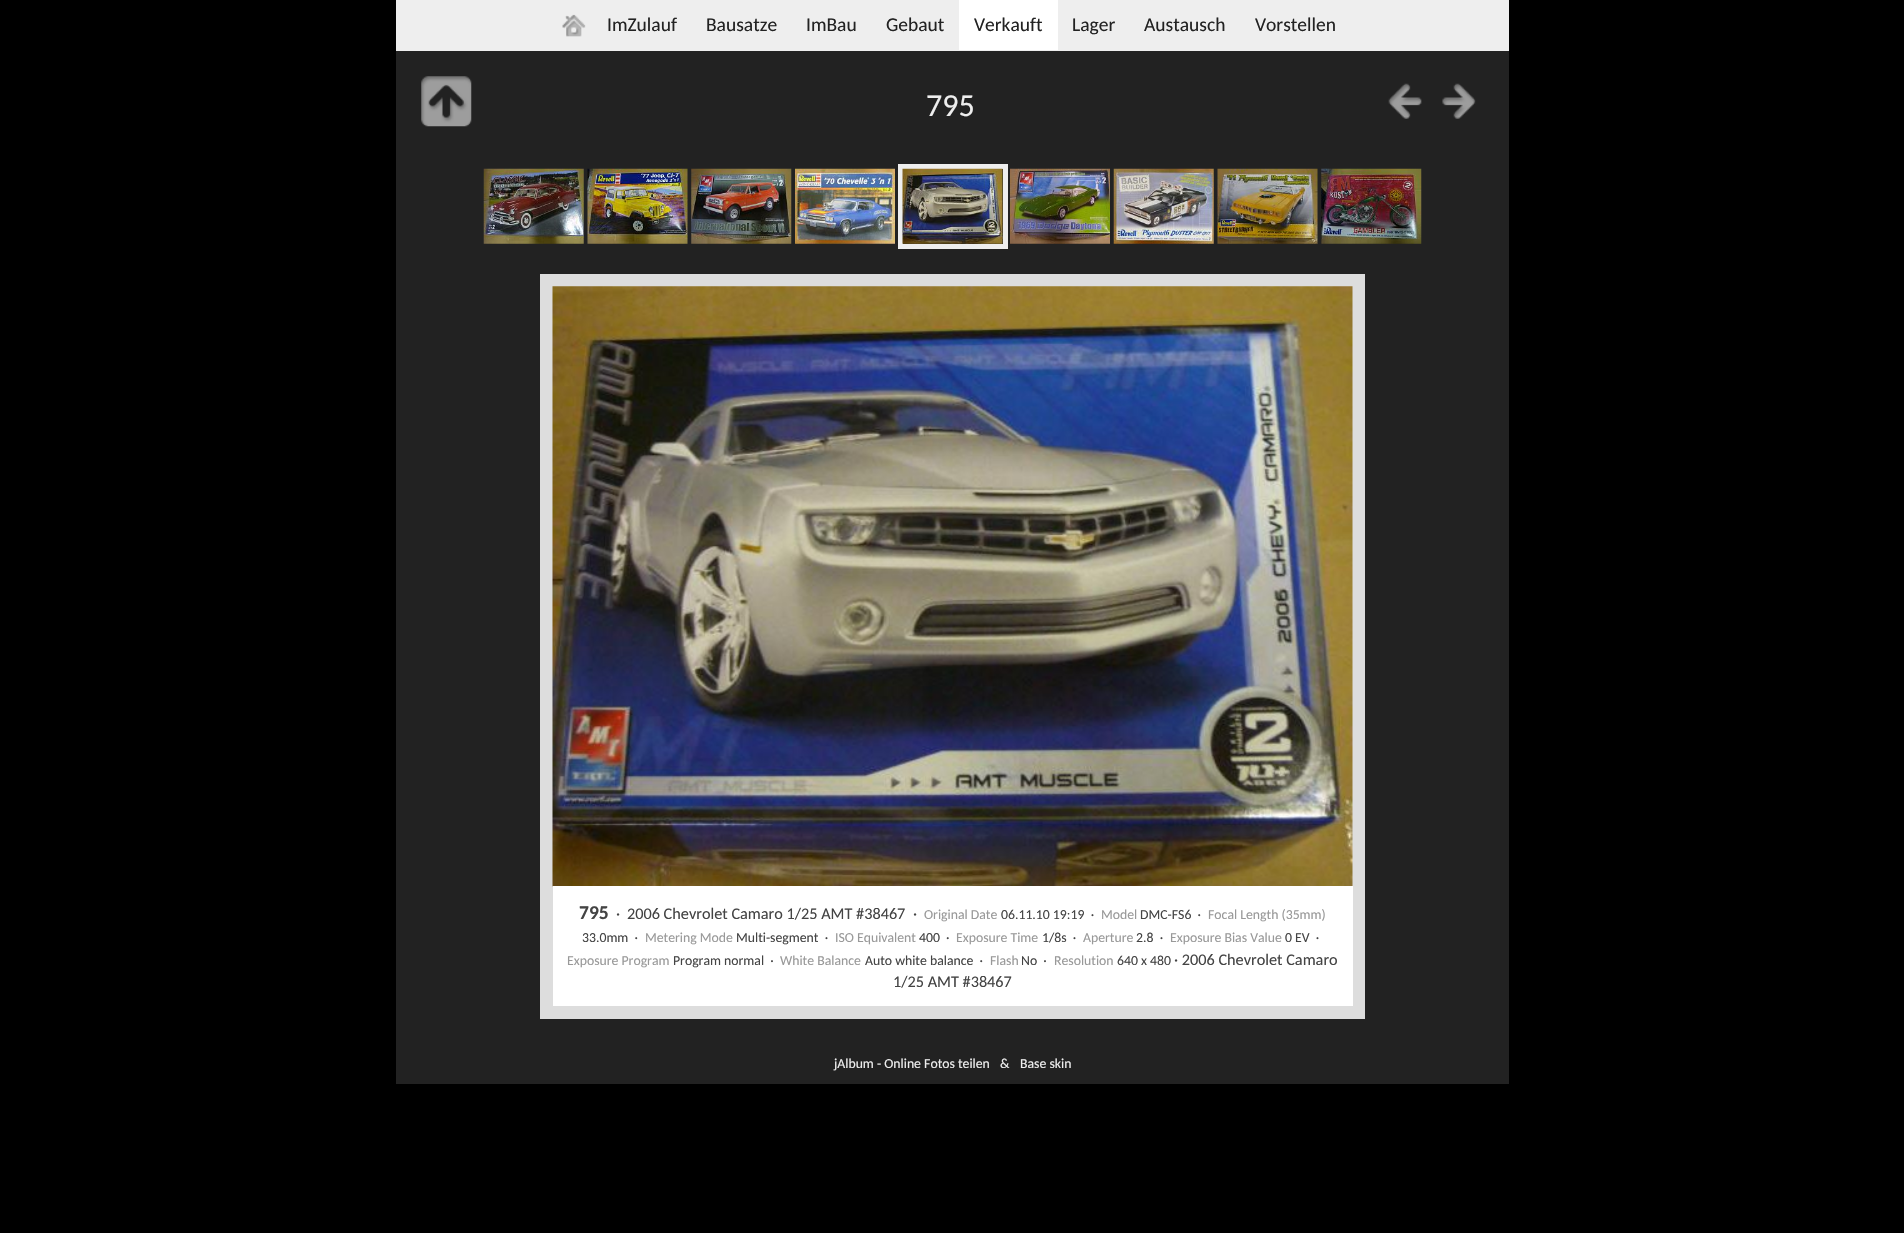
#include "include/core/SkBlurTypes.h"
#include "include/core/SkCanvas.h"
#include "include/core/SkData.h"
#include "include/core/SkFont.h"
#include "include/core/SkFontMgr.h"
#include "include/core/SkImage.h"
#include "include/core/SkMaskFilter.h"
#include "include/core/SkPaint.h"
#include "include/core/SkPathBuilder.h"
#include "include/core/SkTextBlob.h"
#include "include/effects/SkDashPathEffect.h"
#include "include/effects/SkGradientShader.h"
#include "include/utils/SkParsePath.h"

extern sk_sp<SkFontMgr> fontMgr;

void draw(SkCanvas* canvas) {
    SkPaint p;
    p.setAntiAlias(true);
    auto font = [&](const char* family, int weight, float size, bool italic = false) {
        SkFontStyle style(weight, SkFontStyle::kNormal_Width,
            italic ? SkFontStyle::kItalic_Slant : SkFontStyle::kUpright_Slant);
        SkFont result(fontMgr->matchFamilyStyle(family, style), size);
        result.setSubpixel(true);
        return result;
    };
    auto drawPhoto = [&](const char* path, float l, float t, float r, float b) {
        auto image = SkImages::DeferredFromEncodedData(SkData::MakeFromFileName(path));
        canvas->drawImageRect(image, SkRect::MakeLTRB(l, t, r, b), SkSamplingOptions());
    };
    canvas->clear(0xFF000000);
    p.setColor(0xFF222222);
    canvas->drawRect(SkRect::MakeLTRB(396, 51, 1509, 1084), p);
    p.setColor(0xFFEEEEEE);
    canvas->drawRect(SkRect::MakeLTRB(396, 0, 1509, 51), p);
    drawPhoto("media/1.png", 562, 14, 586, 37);
    auto font1 = font("Carlito", 400, 19.5f);
    p.setColor(0xFF222222);
    {
        const struct { const char* s; float x, y; } items[] = {
            {"ImZulauf", 607, 31},
            {"Bausatze", 706, 31},
            {"ImBau", 806, 31},
            {"Gebaut", 886, 31},
        };
        for (auto [s, x, y] : items) {
            canvas->drawString(s, x, y, font1, p);
        }
    }
    p.setColor(0xFFFFFFFF);
    canvas->drawRect(SkRect::MakeLTRB(959, 0, 1058, 50), p);
    p.setColor(0xFF222222);
    {
        const struct { const char* s; float x, y; } items[] = {
            {"Verkauft", 974, 31},
            {"Lager", 1072, 31},
            {"Austausch", 1144, 31},
            {"Vorstellen", 1255, 31},
        };
        for (auto [s, x, y] : items) {
            canvas->drawString(s, x, y, font1, p);
        }
    }
    drawPhoto("media/2.png", 421, 76, 472, 127);
    auto font2 = font("Carlito", 400, 32);
    p.setColor(0xFFEEEEEE);
    canvas->drawString("795", 926, 116, font2, p);
    drawPhoto("media/3.png", 1388, 83, 1422, 119);
    drawPhoto("media/4.png", 1442, 83, 1476, 119);
    drawPhoto("media/5.png", 483, 168, 584, 244);
    drawPhoto("media/6.png", 587, 168, 688, 244);
    drawPhoto("media/7.png", 691, 168, 792, 244);
    drawPhoto("media/8.png", 795, 168, 895, 244);
    p.setStyle(SkPaint::kStroke_Style);
    p.setStrokeWidth(5);
    canvas->drawRect(SkRect::MakeLTRB(900.5f, 166.5f, 1005.5f, 246.5f), p);
    drawPhoto("media/9.png", 902, 168, 1003, 244);
    drawPhoto("media/10.png", 1010, 168, 1110, 244);
    drawPhoto("media/11.png", 1113, 168, 1214, 244);
    drawPhoto("media/12.png", 1217, 168, 1318, 244);
    drawPhoto("media/13.png", 1321, 168, 1422, 244);
    p.setStyle(SkPaint::kFill_Style);
    p.setColor(0xFFDDDDDD);
    canvas->drawRect(SkRect::MakeLTRB(540, 274, 1365, 1019), p);
    drawPhoto("media/14.png", 552, 286, 1353, 887);
    p.setColor(0xFFFFFFFF);
    canvas->drawRect(SkRect::MakeLTRB(553, 886, 1353, 1006), p);
    auto font3 = font("Carlito", 700, 19.5f);
    p.setColor(0xFF444444);
    canvas->drawString("795", 579, 919, font3, p);
    auto font4 = font("Carlito", 400, 16.25f);
    {
        const struct { const char* s; float x, y; } items[] = {
            {"·", 616, 919},
            {"2006 Chevrolet Camaro 1/25 AMT #38467", 627, 919},
            {"·", 913, 919},
        };
        for (auto [s, x, y] : items) {
            canvas->drawString(s, x, y, font4, p);
        }
    }
    auto font5 = font("Carlito", 400, 13.75f);
    p.setColor(0xFF999999);
    canvas->drawString("Original Date", 924, 919, font5, p);
    p.setColor(0xFF444444);
    canvas->drawString("06.11.10 19:19  ·", 1001, 919, font5, p);
    p.setColor(0xFF999999);
    canvas->drawString("Model", 1101, 919, font5, p);
    p.setColor(0xFF444444);
    canvas->drawString("DMC-FS6  ·", 1140, 919, font5, p);
    p.setColor(0xFF999999);
    canvas->drawString("Focal Length (35mm)", 1208, 919, font5, p);
    p.setColor(0xFF444444);
    canvas->drawString("33.0mm  ·", 582, 942, font5, p);
    p.setColor(0xFF999999);
    canvas->drawString("Metering Mode", 645, 942, font5, p);
    p.setColor(0xFF444444);
    canvas->drawString("Multi-segment  ·", 736, 942, font5, p);
    p.setColor(0xFF999999);
    canvas->drawString("ISO Equivalent", 835, 942, font5, p);
    p.setColor(0xFF444444);
    canvas->drawString("400  ·", 919, 942, font5, p);
    p.setColor(0xFF999999);
    canvas->drawString("Exposure Time", 956, 942, font5, p);
    p.setColor(0xFF444444);
    canvas->drawString("1/8s  ·", 1042, 942, font5, p);
    p.setColor(0xFF999999);
    canvas->drawString("Aperture", 1083, 942, font5, p);
    p.setColor(0xFF444444);
    canvas->drawString("2.8  ·", 1136, 942, font5, p);
    p.setColor(0xFF999999);
    canvas->drawString("Exposure Bias Value", 1170, 942, font5, p);
    p.setColor(0xFF444444);
    canvas->drawString("0 EV  ·", 1285, 942, font5, p);
    p.setColor(0xFF999999);
    canvas->drawString("Exposure Program", 567, 965, font5, p);
    p.setColor(0xFF444444);
    canvas->drawString("Program normal  ·", 673, 965, font5, p);
    p.setColor(0xFF999999);
    canvas->drawString("White Balance", 780, 965, font5, p);
    p.setColor(0xFF444444);
    canvas->drawString("Auto white balance  ·", 865, 965, font5, p);
    p.setColor(0xFF999999);
    canvas->drawString("Flash", 990, 965, font5, p);
    p.setColor(0xFF444444);
    canvas->drawString("No  ·", 1021, 965, font5, p);
    p.setColor(0xFF999999);
    canvas->drawString("Resolution", 1054, 965, font5, p);
    p.setColor(0xFF444444);
    canvas->drawString("640 x 480", 1117, 965, font5, p);
    canvas->drawString("· 2006 Chevrolet Camaro", 1174, 965, font4, p);
    canvas->drawString("1/25 AMT #38467", 893, 987, font4, p);
    p.setColor(0xFFEEEEEE);
    {
        const struct { const char* s; float x, y; } items[] = {
            {"jAlbum - Online Fotos teilen", 834, 1068},
            {"&", 1000, 1068},
            {"Base skin", 1020, 1068},
        };
        for (auto [s, x, y] : items) {
            canvas->drawString(s, x, y, font5, p);
        }
    }
}
